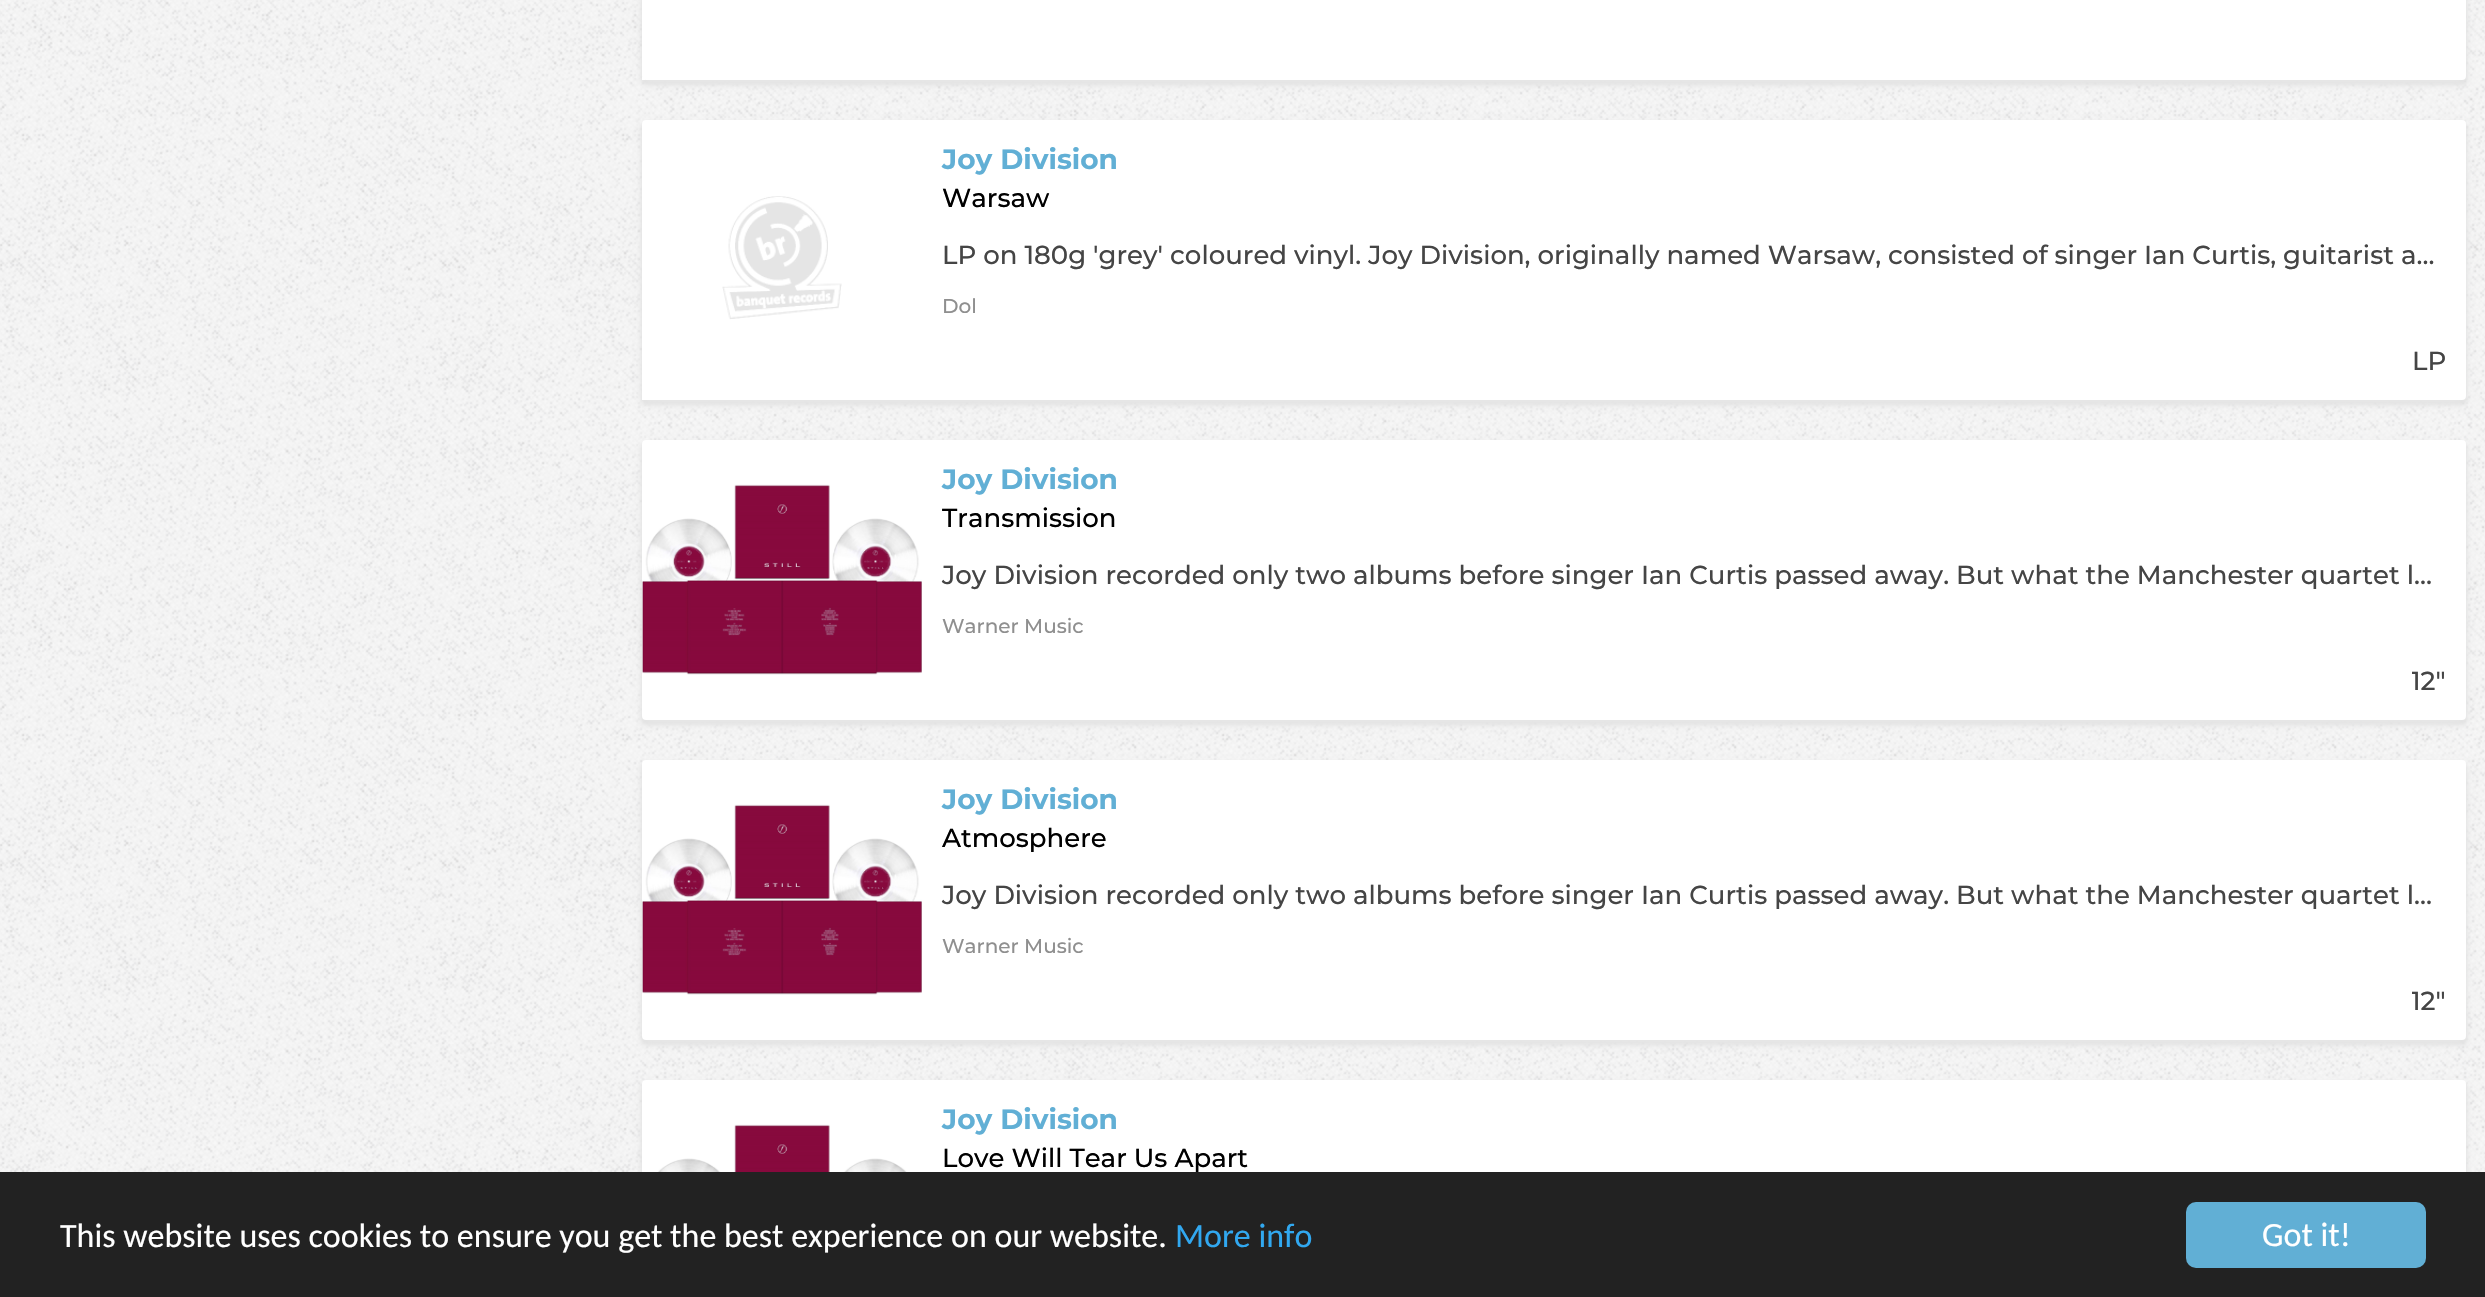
#include "include/core/SkBlurTypes.h"
#include "include/core/SkCanvas.h"
#include "include/core/SkData.h"
#include "include/core/SkFont.h"
#include "include/core/SkFontMgr.h"
#include "include/core/SkImage.h"
#include "include/core/SkMaskFilter.h"
#include "include/core/SkPaint.h"
#include "include/core/SkPathBuilder.h"
#include "include/core/SkTextBlob.h"
#include "include/effects/SkDashPathEffect.h"
#include "include/effects/SkGradientShader.h"
#include "include/utils/SkParsePath.h"

extern sk_sp<SkFontMgr> fontMgr;

void draw(SkCanvas* canvas) {
    SkPaint p;
    p.setAntiAlias(true);
    auto font = [&](const char* family, int weight, float size, bool italic = false) {
        SkFontStyle style(weight, SkFontStyle::kNormal_Width,
            italic ? SkFontStyle::kItalic_Slant : SkFontStyle::kUpright_Slant);
        SkFont result(fontMgr->matchFamilyStyle(family, style), size);
        result.setSubpixel(true);
        return result;
    };
    auto drawPhoto = [&](const char* path, float l, float t, float r, float b) {
        auto image = SkImages::DeferredFromEncodedData(SkData::MakeFromFileName(path));
        canvas->drawImageRect(image, SkRect::MakeLTRB(l, t, r, b), SkSamplingOptions());
    };
    canvas->clear(0xFFF1F1F1);
    drawPhoto("media/1.png", 0, 0, 2485, 1172);
    p.setColor(0xFFD6D6D6);
    p.setMaskFilter(SkMaskFilter::MakeBlur(kNormal_SkBlurStyle, 2));
    canvas->drawRoundRect(SkRect::MakeLTRB(642, -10, 2466, 84), 4, 4, p);
    p.setMaskFilter(nullptr);
    p.setColor(0xFFEBEBEB);
    p.setMaskFilter(SkMaskFilter::MakeBlur(kNormal_SkBlurStyle, 4));
    canvas->drawRoundRect(SkRect::MakeLTRB(642, -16, 2466, 84), 4, 4, p);
    p.setMaskFilter(nullptr);
    p.setColor(0xFFFFFFFF);
    canvas->drawRoundRect(SkRect::MakeLTRB(642, -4, 2466, 80), 4, 4, p);
    canvas->drawRect(SkRect::MakeLTRB(642, 77, 645, 80), p);
    p.setColor(0xFFD6D6D6);
    p.setMaskFilter(SkMaskFilter::MakeBlur(kNormal_SkBlurStyle, 2));
    canvas->drawRoundRect(SkRect::MakeLTRB(642, 124, 2466, 404), 4, 4, p);
    p.setMaskFilter(nullptr);
    p.setColor(0xFFEBEBEB);
    p.setMaskFilter(SkMaskFilter::MakeBlur(kNormal_SkBlurStyle, 4));
    canvas->drawRoundRect(SkRect::MakeLTRB(642, 124, 2466, 404), 4, 4, p);
    p.setMaskFilter(nullptr);
    p.setColor(0xFFFFFFFF);
    canvas->drawRoundRect(SkRect::MakeLTRB(642, 120, 2466, 400), 4, 4, p);
    auto font1 = font("Montserrat", 700, 28);
    p.setColor(0xFF61AFD5);
    canvas->drawString("Joy Division", 942, 169, font1, p);
    drawPhoto("media/2.png", 642, 196, 842, 400);
    auto font2 = font("Montserrat", 500, 26);
    p.setColor(0xFF000000);
    canvas->drawString("Warsaw", 942, 207, font2, p);
    p.setColor(0xFF454545);
    canvas->drawString("LP on 180g 'grey' coloured vinyl. Joy Division, originally named Warsaw, consisted of singer Ian Curtis, guitarist a…", 942, 264, font2, p);
    auto font3 = font("Montserrat", 500, 20);
    p.setColor(0xFF8F8F8F);
    canvas->drawString("Dol", 942, 313, font3, p);
    p.setColor(0xFF454545);
    canvas->drawString("LP", 2412, 370, font2, p);
    p.setColor(0xFFD6D6D6);
    p.setMaskFilter(SkMaskFilter::MakeBlur(kNormal_SkBlurStyle, 2));
    canvas->drawRoundRect(SkRect::MakeLTRB(642, 444, 2466, 724), 4, 4, p);
    p.setMaskFilter(nullptr);
    p.setColor(0xFFEBEBEB);
    p.setMaskFilter(SkMaskFilter::MakeBlur(kNormal_SkBlurStyle, 4));
    canvas->drawRoundRect(SkRect::MakeLTRB(642, 444, 2466, 724), 4, 4, p);
    p.setMaskFilter(nullptr);
    p.setColor(0xFFFFFFFF);
    canvas->drawRoundRect(SkRect::MakeLTRB(642, 440, 2466, 720), 4, 4, p);
    p.setColor(0xFF61AFD5);
    canvas->drawString("Joy Division", 942, 489, font1, p);
    drawPhoto("media/3.png", 642, 484, 922, 675);
    p.setColor(0xFF000000);
    canvas->drawString("Transmission", 942, 527, font2, p);
    p.setColor(0xFF454545);
    canvas->drawString("Joy Division recorded only two albums before singer Ian Curtis passed away. But what the Manchester quartet l…", 942, 584, font2, p);
    p.setColor(0xFF8F8F8F);
    canvas->drawString("Warner Music", 942, 633, font3, p);
    canvas->save();
    canvas->clipRect(SkRect::MakeLTRB(2412, 662, 2446, 700));
    p.setColor(0xFF454545);
    canvas->drawString("12\"", 2411, 690, font2, p);
    canvas->restore();
    p.setColor(0xFFD6D6D6);
    p.setMaskFilter(SkMaskFilter::MakeBlur(kNormal_SkBlurStyle, 2));
    canvas->drawRoundRect(SkRect::MakeLTRB(642, 764, 2466, 1044), 4, 4, p);
    p.setMaskFilter(nullptr);
    p.setColor(0xFFEBEBEB);
    p.setMaskFilter(SkMaskFilter::MakeBlur(kNormal_SkBlurStyle, 4));
    canvas->drawRoundRect(SkRect::MakeLTRB(642, 764, 2466, 1044), 4, 4, p);
    p.setMaskFilter(nullptr);
    p.setColor(0xFFFFFFFF);
    canvas->drawRoundRect(SkRect::MakeLTRB(642, 760, 2466, 1040), 4, 4, p);
    p.setColor(0xFF61AFD5);
    canvas->drawString("Joy Division", 942, 809, font1, p);
    drawPhoto("media/4.png", 642, 804, 922, 995);
    p.setColor(0xFF000000);
    canvas->drawString("Atmosphere", 942, 847, font2, p);
    p.setColor(0xFF454545);
    canvas->drawString("Joy Division recorded only two albums before singer Ian Curtis passed away. But what the Manchester quartet l…", 942, 904, font2, p);
    p.setColor(0xFF8F8F8F);
    canvas->drawString("Warner Music", 942, 953, font3, p);
    canvas->save();
    canvas->clipRect(SkRect::MakeLTRB(2412, 982, 2446, 1020));
    p.setColor(0xFF454545);
    canvas->drawString("12\"", 2411, 1010, font2, p);
    canvas->restore();
    p.setColor(0xFFD6D6D6);
    p.setMaskFilter(SkMaskFilter::MakeBlur(kNormal_SkBlurStyle, 2));
    canvas->drawRoundRect(SkRect::MakeLTRB(642, 1084, 2466, 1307), 4, 4, p);
    p.setMaskFilter(nullptr);
    p.setColor(0xFFEBEBEB);
    p.setMaskFilter(SkMaskFilter::MakeBlur(kNormal_SkBlurStyle, 4));
    canvas->drawRoundRect(SkRect::MakeLTRB(642, 1084, 2466, 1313), 4, 4, p);
    p.setMaskFilter(nullptr);
    p.setColor(0xFFFFFFFF);
    canvas->drawRoundRect(SkRect::MakeLTRB(642, 1080, 2466, 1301), 4, 4, p);
    p.setColor(0xFF61AFD5);
    canvas->drawString("Joy Division", 942, 1129, font1, p);
    drawPhoto("media/5.png", 642, 1124, 922, 1172);
    p.setColor(0xFF000000);
    canvas->drawString("Love Will Tear Us Apart", 942, 1167, font2, p);
    p.setColor(0xFF222222);
    canvas->drawRect(SkRect::MakeLTRB(0, 1172, 2485, 1297), p);
    auto font4 = font("Carlito", 400, 34);
    p.setColor(0xFFFFFFFF);
    canvas->drawString("This website uses cookies to ensure you get the best experience on our website.", 60, 1247, font4, p);
    p.setColor(0xFF31A8F0);
    canvas->drawString("More info", 1175, 1247, font4, p);
    p.setColor(0xFF61AFD5);
    canvas->drawRoundRect(SkRect::MakeLTRB(2186, 1202, 2426, 1268), 10, 10, p);
    p.setColor(0xFFFFFFFF);
    canvas->drawString("Got it!", 2262, 1246, font4, p);
}
